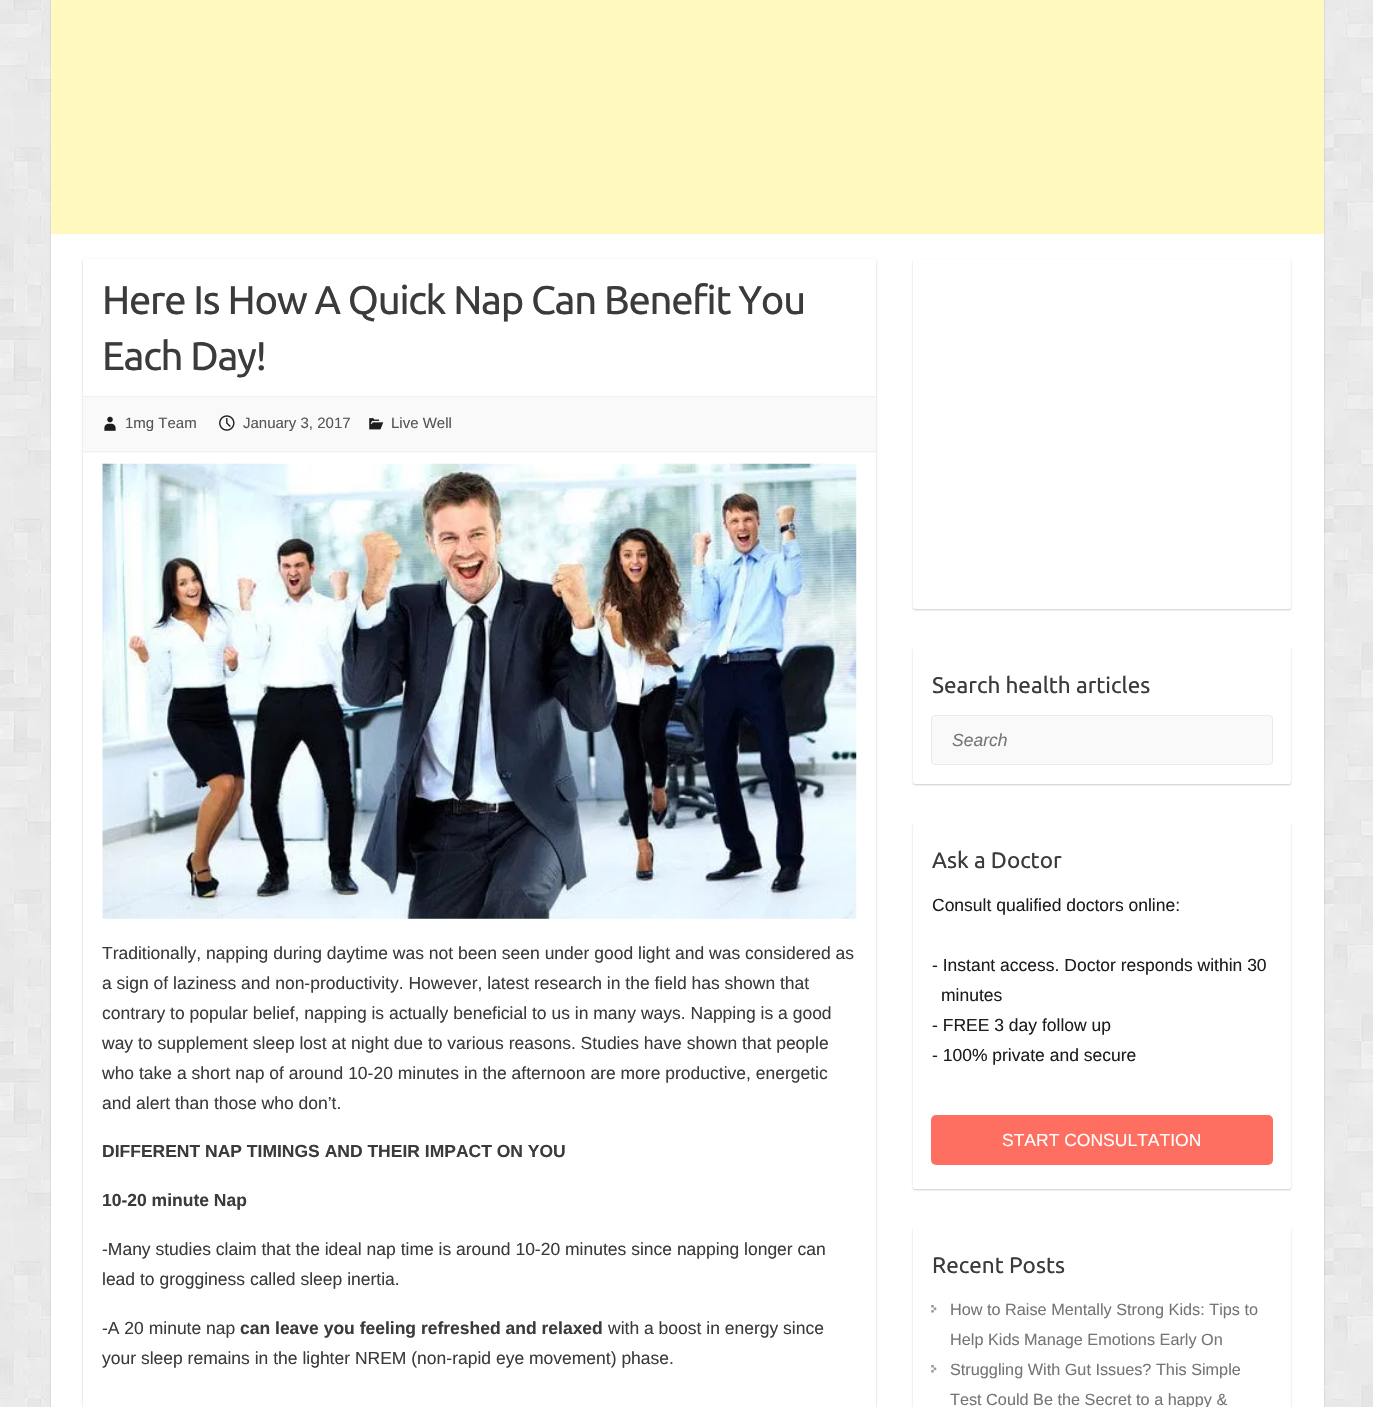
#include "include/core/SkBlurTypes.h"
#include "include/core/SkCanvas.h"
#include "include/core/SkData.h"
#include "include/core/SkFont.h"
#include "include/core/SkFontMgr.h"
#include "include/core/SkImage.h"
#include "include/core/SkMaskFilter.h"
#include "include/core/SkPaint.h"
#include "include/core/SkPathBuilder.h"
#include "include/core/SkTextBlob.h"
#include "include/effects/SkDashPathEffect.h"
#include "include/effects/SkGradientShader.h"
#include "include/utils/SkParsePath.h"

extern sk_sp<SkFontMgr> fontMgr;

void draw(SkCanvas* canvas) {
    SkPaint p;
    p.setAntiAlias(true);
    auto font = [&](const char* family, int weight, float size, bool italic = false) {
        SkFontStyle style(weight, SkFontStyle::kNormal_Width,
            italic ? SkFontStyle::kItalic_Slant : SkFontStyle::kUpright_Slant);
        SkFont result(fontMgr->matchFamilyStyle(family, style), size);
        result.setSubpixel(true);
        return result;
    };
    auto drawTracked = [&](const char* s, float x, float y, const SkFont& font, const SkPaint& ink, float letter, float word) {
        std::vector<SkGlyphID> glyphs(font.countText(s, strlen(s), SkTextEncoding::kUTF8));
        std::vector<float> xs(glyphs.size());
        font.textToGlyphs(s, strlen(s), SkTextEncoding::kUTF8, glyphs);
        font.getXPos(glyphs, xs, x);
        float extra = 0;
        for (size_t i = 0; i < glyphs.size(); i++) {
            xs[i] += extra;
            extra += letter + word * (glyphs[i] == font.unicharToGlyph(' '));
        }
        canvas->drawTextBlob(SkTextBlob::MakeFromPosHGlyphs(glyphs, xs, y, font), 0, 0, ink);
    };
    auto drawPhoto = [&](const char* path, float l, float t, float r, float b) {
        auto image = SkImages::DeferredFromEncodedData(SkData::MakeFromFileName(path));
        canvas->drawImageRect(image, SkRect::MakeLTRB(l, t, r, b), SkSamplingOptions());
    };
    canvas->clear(0xFFFFFFFF);
    drawPhoto("media/1.png", 0, 0, 1373, 1407);
    p.setColor(0x33000000);
    p.setMaskFilter(SkMaskFilter::MakeBlur(kNormal_SkBlurStyle, 1));
    canvas->drawRoundRect(SkRect::MakeLTRB(51, -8, 1324, 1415), 5, 5, p);
    p.setMaskFilter(nullptr);
    p.setColor(0xFFFFFFFF);
    canvas->drawRect(SkRect::MakeLTRB(51, 234, 1324, 1407), p);
    p.setColor(0xFFFFF9C0);
    canvas->drawRect(SkRect::MakeLTRB(51, 0, 1324, 234), p);
    canvas->save();
    canvas->clipPath(SkPathBuilder(SkPathFillType::kEvenOdd).moveTo(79, 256).lineTo(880, 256).lineTo(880, 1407).lineTo(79, 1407).close().moveTo(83, 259).lineTo(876, 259).lineTo(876, 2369).lineTo(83, 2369).close().detach(), true);
    p.setColor(0x33000000);
    p.setMaskFilter(SkMaskFilter::MakeBlur(kNormal_SkBlurStyle, 1));
    canvas->drawRect(SkRect::MakeLTRB(83, 260, 876, 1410), p);
    p.setMaskFilter(nullptr);
    canvas->restore();
    auto font1 = font("Ubuntu", 400, 40);
    p.setColor(0xFF3B3B3B);
    drawTracked("Here Is How A Quick Nap Can Benefit You", 102, 314, font1, p, -1.25f, 0);
    drawTracked("Each Day!", 102, 370, font1, p, -1.25f, 0);
    {
        const struct { float l, t, r, b; SkColor color; } items[] = {
            {83, 397, 876, 453, 0xFFF9F9F9},
            {83, 396, 876, 397, 0xFFF0F0F0},
            {83, 451, 876, 452, 0xFFF0F0F0},
        };
        for (auto [l, t, r, b, color] : items) {
            p.setColor(color);
            canvas->drawRect(SkRect::MakeLTRB(l, t, r, b), p);
        }
    }
    drawPhoto("media/2.png", 104, 416, 116, 431);
    auto font2 = font("Liberation Sans", 400, 15);
    p.setColor(0xFF555555);
    canvas->drawString("1mg Team", 125, 428, font2, p);
    drawPhoto("media/3.png", 219, 415, 235, 431);
    canvas->drawString("January 3, 2017", 243, 428, font2, p);
    drawPhoto("media/4.png", 369, 418, 384, 430);
    canvas->drawString("Live Well", 391, 428, font2, p);
    drawPhoto("media/5.png", 102, 463, 857, 919);
    auto font3 = font("Liberation Sans", 400, 17.5f);
    p.setColor(0xFF3B3B3B);
    {
        const struct { const char* s; float x, y; } items[] = {
            {"Traditionally, napping during daytime was not been seen under good light and was considered as", 102, 959},
            {"a sign of laziness and non-productivity. However, latest research in the field has shown that", 102, 989},
            {"contrary to popular belief, napping is actually beneficial to us in many ways. Napping is a good", 102, 1019},
            {"way to supplement sleep lost at night due to various reasons. Studies have shown that people", 102, 1049},
            {"who take a short nap of around 10-20 minutes in the afternoon are more productive, energetic", 102, 1079},
            {"and alert than those who don’t.", 102, 1109},
        };
        for (auto [s, x, y] : items) {
            canvas->drawString(s, x, y, font3, p);
        }
    }
    auto font4 = font("Liberation Sans", 700, 17.5f);
    canvas->drawString("DIFFERENT NAP TIMINGS AND THEIR IMPACT ON YOU", 102, 1157, font4, p);
    canvas->drawString("10-20 minute Nap", 102, 1206, font4, p);
    {
        const struct { const char* s; float x, y; } items[] = {
            {"-Many studies claim that the ideal nap time is around 10-20 minutes since napping longer can", 102, 1255},
            {"lead to grogginess called sleep inertia.", 102, 1285},
            {"-A 20 minute nap", 102, 1334},
        };
        for (auto [s, x, y] : items) {
            canvas->drawString(s, x, y, font3, p);
        }
    }
    canvas->drawString("can leave you feeling refreshed and relaxed", 240, 1334, font4, p);
    canvas->drawString("with a boost in energy since", 608, 1334, font3, p);
    canvas->drawString("your sleep remains in the lighter NREM (non-rapid eye movement) phase.", 102, 1364, font3, p);
    p.setColor(0x33000000);
    p.setMaskFilter(SkMaskFilter::MakeBlur(kNormal_SkBlurStyle, 1));
    canvas->drawRoundRect(SkRect::MakeLTRB(913, 260, 1291, 610), 2.5f, 2.5f, p);
    p.setMaskFilter(nullptr);
    p.setColor(0xFFFFFFFF);
    canvas->drawRoundRect(SkRect::MakeLTRB(913, 259, 1291, 609), 2.5f, 2.5f, p);
    p.setColor(0x33000000);
    p.setMaskFilter(SkMaskFilter::MakeBlur(kNormal_SkBlurStyle, 1));
    canvas->drawRoundRect(SkRect::MakeLTRB(913, 648, 1291, 785), 2.5f, 2.5f, p);
    p.setMaskFilter(nullptr);
    p.setColor(0xFFFFFFFF);
    canvas->drawRoundRect(SkRect::MakeLTRB(913, 646, 1291, 784), 2.5f, 2.5f, p);
    auto font5 = font("Ubuntu", 400, 22.5f);
    p.setColor(0xFF3B3B3B);
    canvas->drawString("Search health articles", 932, 693, font5, p);
    p.setColor(0xFFF9F9F9);
    canvas->drawRoundRect(SkRect::MakeLTRB(931.5f, 715.5f, 1272.5f, 764.5f), 3.5f, 3.5f, p);
    p.setStyle(SkPaint::kStroke_Style);
    p.setStrokeWidth(1);
    p.setColor(0xFFEAEAEA);
    canvas->drawRoundRect(SkRect::MakeLTRB(931.5f, 715.5f, 1272.5f, 764.5f), 3.5f, 3.5f, p);
    auto font6 = font("Liberation Sans", 400, 17.5f, true);
    p.setStyle(SkPaint::kFill_Style);
    p.setColor(0xFF757575);
    canvas->drawString("Search", 952, 746, font6, p);
    p.setColor(0x33000000);
    p.setMaskFilter(SkMaskFilter::MakeBlur(kNormal_SkBlurStyle, 1));
    canvas->drawRoundRect(SkRect::MakeLTRB(913, 823, 1291, 1190), 2.5f, 2.5f, p);
    p.setMaskFilter(nullptr);
    p.setColor(0xFFFFFFFF);
    canvas->drawRoundRect(SkRect::MakeLTRB(913, 821, 1291, 1189), 2.5f, 2.5f, p);
    p.setColor(0xFF3B3B3B);
    canvas->drawString("Ask a Doctor", 932, 868, font5, p);
    p.setColor(0xFF1D1D1D);
    {
        const struct { const char* s; float x, y; } items[] = {
            {"Consult qualified doctors online:", 932, 911},
            {"- Instant access. Doctor responds within 30", 932, 971},
            {"minutes", 941, 1001},
            {"- FREE 3 day follow up", 932, 1031},
            {"- 100% private and secure", 932, 1061},
        };
        for (auto [s, x, y] : items) {
            canvas->drawString(s, x, y, font3, p);
        }
    }
    p.setColor(0xFFFF6F61);
    canvas->drawRoundRect(SkRect::MakeLTRB(931, 1115, 1273, 1165), 5, 5, p);
    p.setColor(0xFFFFFFFF);
    canvas->drawString("START CONSULTATION", 1002, 1146, font3, p);
    canvas->save();
    canvas->clipPath(SkPathBuilder(SkPathFillType::kEvenOdd).moveTo(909, 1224).lineTo(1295, 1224).lineTo(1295, 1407).lineTo(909, 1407).close().moveTo(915.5f, 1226).lineTo(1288.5f, 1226).cubicTo(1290, 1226, 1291, 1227, 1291, 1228.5f).lineTo(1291, 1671.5f).cubicTo(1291, 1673, 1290, 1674, 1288.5f, 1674).lineTo(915.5f, 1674).cubicTo(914, 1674, 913, 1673, 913, 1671.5f).lineTo(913, 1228.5f).cubicTo(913, 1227, 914, 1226, 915.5f, 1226).close().detach(), true);
    p.setColor(0x33000000);
    p.setMaskFilter(SkMaskFilter::MakeBlur(kNormal_SkBlurStyle, 1));
    canvas->drawRoundRect(SkRect::MakeLTRB(913, 1228, 1291, 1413), 2.5f, 2.5f, p);
    p.setMaskFilter(nullptr);
    canvas->restore();
    p.setColor(0xFF3B3B3B);
    canvas->drawString("Recent Posts", 932, 1273, font5, p);
    drawPhoto("media/6.png", 931, 1305, 937, 1313);
    auto font7 = font("Liberation Sans", 400, 16.25f);
    p.setColor(0xFF757575);
    canvas->drawString("How to Raise Mentally Strong Kids: Tips to", 950, 1315, font7, p);
    canvas->drawString("Help Kids Manage Emotions Early On", 950, 1345, font7, p);
    drawPhoto("media/6.png", 931, 1365, 937, 1373);
    canvas->drawString("Struggling With Gut Issues? This Simple", 950, 1375, font7, p);
    canvas->drawString("Test Could Be the Secret to a happy &", 950, 1405, font7, p);
}
